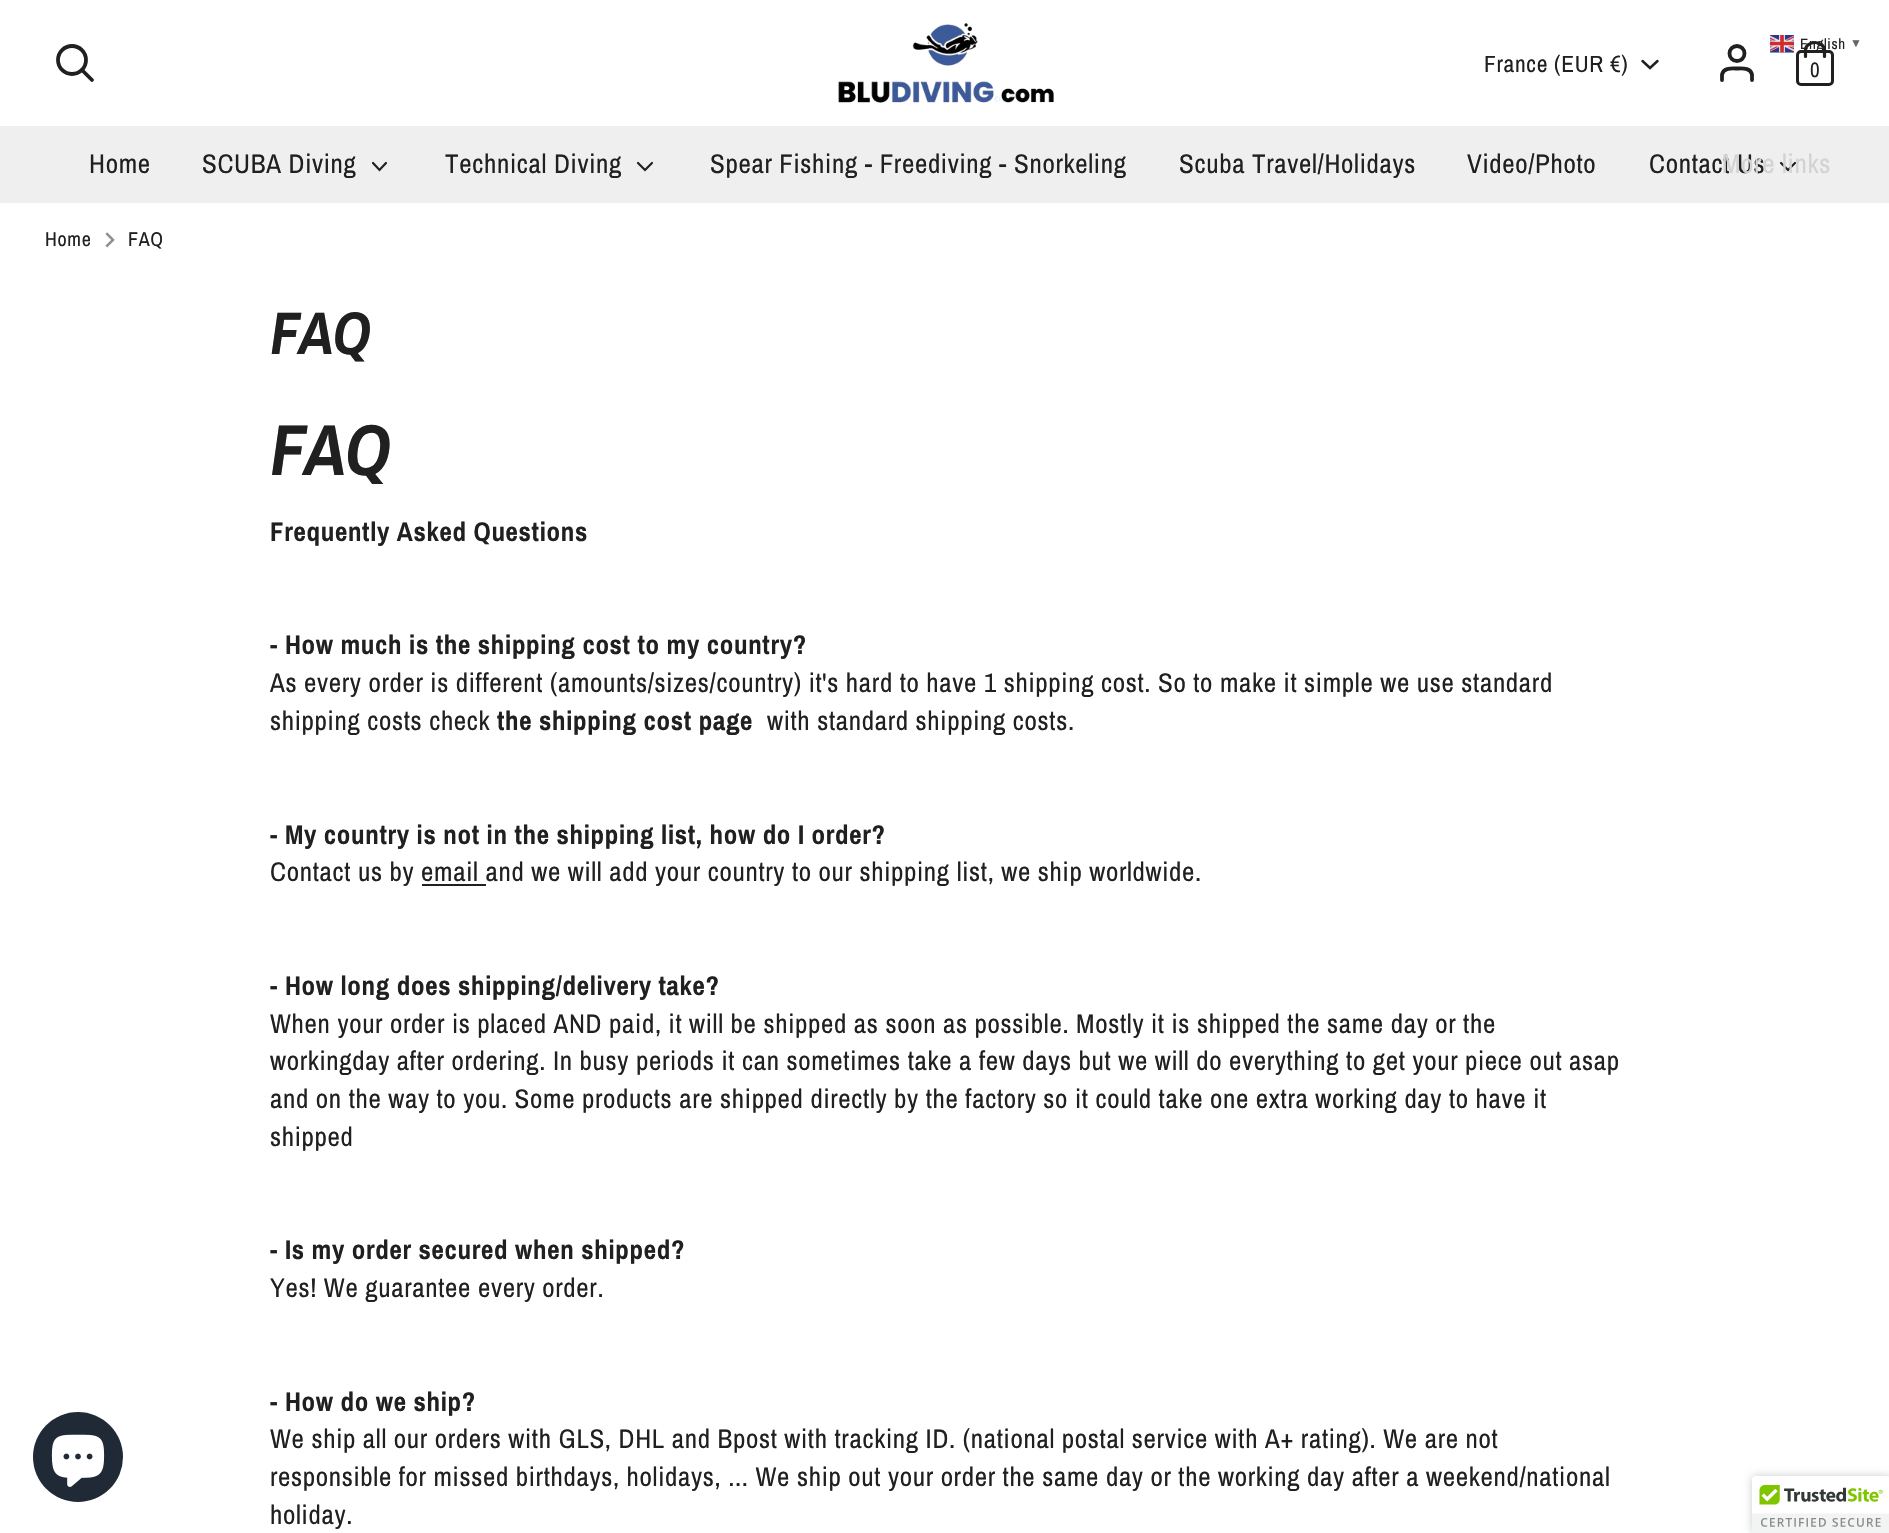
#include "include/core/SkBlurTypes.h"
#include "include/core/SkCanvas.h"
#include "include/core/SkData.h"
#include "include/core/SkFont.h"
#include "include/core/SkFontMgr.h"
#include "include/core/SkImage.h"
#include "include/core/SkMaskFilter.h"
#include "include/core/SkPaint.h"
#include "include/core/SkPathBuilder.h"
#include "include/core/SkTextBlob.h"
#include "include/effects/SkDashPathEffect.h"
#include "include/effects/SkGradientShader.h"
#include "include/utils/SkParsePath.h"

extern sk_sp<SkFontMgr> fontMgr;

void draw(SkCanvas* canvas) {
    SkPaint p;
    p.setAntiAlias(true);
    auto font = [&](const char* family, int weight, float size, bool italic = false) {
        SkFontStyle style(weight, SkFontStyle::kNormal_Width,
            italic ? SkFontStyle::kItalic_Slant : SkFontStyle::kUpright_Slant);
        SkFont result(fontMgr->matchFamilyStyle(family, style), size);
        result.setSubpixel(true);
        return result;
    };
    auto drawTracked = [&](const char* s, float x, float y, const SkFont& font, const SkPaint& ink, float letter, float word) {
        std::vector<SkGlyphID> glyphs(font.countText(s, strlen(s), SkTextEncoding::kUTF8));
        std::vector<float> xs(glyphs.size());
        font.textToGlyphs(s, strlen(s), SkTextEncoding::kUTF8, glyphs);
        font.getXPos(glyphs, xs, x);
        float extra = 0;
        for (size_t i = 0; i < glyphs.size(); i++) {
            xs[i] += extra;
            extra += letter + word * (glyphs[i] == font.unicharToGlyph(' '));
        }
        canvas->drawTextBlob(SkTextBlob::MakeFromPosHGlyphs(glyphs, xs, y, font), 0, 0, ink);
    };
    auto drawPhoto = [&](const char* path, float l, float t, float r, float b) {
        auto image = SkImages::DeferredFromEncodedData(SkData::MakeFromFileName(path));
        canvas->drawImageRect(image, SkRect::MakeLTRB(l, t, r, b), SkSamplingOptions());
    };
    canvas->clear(0xFFFFFFFF);
    drawPhoto("media/1.png", 1770, 35, 1794, 53);
    p.setStyle(SkPaint::kStroke_Style);
    p.setStrokeWidth(3);
    p.setColor(0xFF202020);
    canvas->drawRoundRect(SkRect::MakeLTRB(1797.5f, 51.5f, 1832.5f, 84.5f), 3.5f, 3.5f, p);
    p.setStrokeWidth(3.2f);
    p.setStrokeCap(SkPaint::kRound_Cap);
    canvas->drawPath(SkPathBuilder().moveTo(1805.5f, 56.5f).lineTo(1805.5f, 50).cubicTo(1805.5f, 46, 1809.5f, 42.5f, 1815, 42.5f).cubicTo(1820, 42.5f, 1824.5f, 46, 1824.5f, 50).lineTo(1824.5f, 56.5f).detach(), p);
    auto font1 = font("Archivo Narrow", 400, 15);
    p.setStyle(SkPaint::kFill_Style);
    drawTracked("English", 1800, 49, font1, p, 0.68f, 0);
    auto font2 = font("Liberation Sans", 700, 12);
    p.setColor(0xFF666666);
    drawTracked("▼", 1850, 47, font2, p, 0.68f, 0);
    p.setStyle(SkPaint::kStroke_Style);
    p.setStrokeWidth(3.8f);
    p.setStrokeCap(SkPaint::kButt_Cap);
    p.setColor(0xFF202020);
    canvas->drawCircle(72, 60, 14, p);
    p.setStrokeCap(SkPaint::kRound_Cap);
    canvas->drawPath(SkPathBuilder().moveTo(92, 80).lineTo(82, 70).detach(), p);
    drawPhoto("media/2.png", 838, 23, 1054, 103);
    auto font3 = font("Archivo Narrow", 400, 23.5f);
    p.setStyle(SkPaint::kFill_Style);
    drawTracked("France (EUR €)", 1484, 72, font3, p, 0.68f, 0);
    p.setStyle(SkPaint::kStroke_Style);
    p.setStrokeWidth(2.5f);
    canvas->drawPath(SkPathBuilder().moveTo(1642.5f, 61).lineTo(1650, 68).lineTo(1657.5f, 61).detach(), p);
    p.setStrokeWidth(3.8f);
    canvas->drawPath(SkPathBuilder().moveTo(1752, 80).lineTo(1752, 74.5f).cubicTo(1750.5f, 67.5f, 1742.5f, 68.5f, 1737, 68.5f).cubicTo(1731.5f, 68.5f, 1723.5f, 67.5f, 1722, 74.5f).lineTo(1722, 80).detach(), p);
    p.setStrokeCap(SkPaint::kButt_Cap);
    canvas->drawCircle(1737, 53.5f, 7.5f, p);
    auto font4 = font("Archivo Narrow", 400, 21);
    p.setStyle(SkPaint::kFill_Style);
    canvas->drawString("0", 1810, 77, font4, p);
    p.setColor(0xFFEFEFEF);
    canvas->drawRect(SkRect::MakeLTRB(0, 126, 1889, 203), p);
    auto font5 = font("Archivo Narrow", 400, 27);
    p.setColor(0xFF202020);
    drawTracked("Home", 89, 173, font5, p, 0.68f, 0);
    drawTracked("SCUBA Diving", 202, 173, font5, p, 0.68f, 0);
    p.setStyle(SkPaint::kStroke_Style);
    p.setStrokeWidth(2.2f);
    p.setStrokeCap(SkPaint::kRound_Cap);
    canvas->drawPath(SkPathBuilder().moveTo(373, 163).lineTo(379.5f, 170).lineTo(386, 163).detach(), p);
    p.setStyle(SkPaint::kFill_Style);
    drawTracked("Technical Diving", 445, 173, font5, p, 0.68f, 0);
    p.setStyle(SkPaint::kStroke_Style);
    canvas->drawPath(SkPathBuilder().moveTo(638, 163).lineTo(645, 170).lineTo(652, 163).detach(), p);
    p.setStyle(SkPaint::kFill_Style);
    {
        const struct { const char* s; float x, y; } items[] = {
            {"Spear Fishing - Freediving - Snorkeling", 710, 173},
            {"Scuba Travel/Holidays", 1179, 173},
            {"Video/Photo", 1467, 173},
            {"Contact Us", 1649, 173},
        };
        for (auto [s, x, y] : items) {
            drawTracked(s, x, y, font5, p, 0.68f, 0);
        }
    }
    p.setStyle(SkPaint::kStroke_Style);
    canvas->drawPath(SkPathBuilder().moveTo(1781, 163).lineTo(1788, 170).lineTo(1795, 163).detach(), p);
    p.setStyle(SkPaint::kFill_Style);
    p.setColor(0xFFD3D3D3);
    drawTracked("More links", 1722, 173, font5, p, 0.68f, 0);
    auto font6 = font("Archivo Narrow", 400, 20);
    p.setColor(0xFF202020);
    drawTracked("Home", 45, 246, font6, p, 0.68f, 0);
    drawPhoto("media/3.png", 105, 232, 115, 248);
    drawTracked("FAQ", 128, 246, font6, p, 0.68f, 0);
    p.setColor(0xFF202A36);
    canvas->drawCircle(78, 1457, 45, p);
    drawPhoto("media/4.png", 51, 1434, 105, 1487);
    auto font7 = font("Archivo Narrow", 700, 60, true);
    p.setColor(0xFF202020);
    drawTracked("FAQ", 270, 354, font7, p, -1.5f, 0);
    auto font8 = font("Archivo Narrow", 700, 72, true);
    drawTracked("FAQ", 270, 475, font8, p, -2, 0);
    auto font9 = font("Archivo Narrow", 700, 27);
    drawTracked("Frequently Asked Questions", 270, 541, font9, p, 0.68f, 0);
    drawTracked("- How much is the shipping cost to my country?", 270, 654, font9, p, 0.68f, 0);
    drawTracked("As every order is different (amounts/sizes/country) it's hard to have 1 shipping cost. So to make it simple we use standard", 270, 692, font5, p, 0.68f, 0);
    drawTracked("shipping costs check", 270, 730, font5, p, 0.68f, 0);
    drawTracked("the shipping cost page", 497, 730, font9, p, 0.68f, 0);
    drawTracked("with standard shipping costs.", 767, 730, font5, p, 0.68f, 0);
    drawTracked("- My country is not in the shipping list, how do I order?", 270, 844, font9, p, 0.68f, 0);
    drawTracked("Contact us by email and we will add your country to our shipping list, we ship worldwide.", 270, 881, font5, p, 0.68f, 0);
    canvas->drawRect(SkRect::MakeLTRB(422, 884, 486, 886), p);
    drawTracked("- How long does shipping/delivery take?", 270, 995, font9, p, 0.68f, 0);
    {
        const struct { const char* s; float x, y; } items[] = {
            {"When your order is placed AND paid, it will be shipped as soon as possible. Mostly it is shipped the same day or the", 270, 1033},
            {"workingday after ordering. In busy periods it can sometimes take a few days but we will do everything to get your piece out asap", 270, 1070},
            {"and on the way to you. Some products are shipped directly by the factory so it could take one extra working day to have it", 270, 1108},
            {"shipped", 270, 1146},
        };
        for (auto [s, x, y] : items) {
            drawTracked(s, x, y, font5, p, 0.68f, 0);
        }
    }
    drawTracked("- Is my order secured when shipped?", 270, 1259, font9, p, 0.68f, 0);
    drawTracked("Yes! We guarantee every order.", 270, 1297, font5, p, 0.68f, 0);
    drawTracked("- How do we ship?", 270, 1411, font9, p, 0.68f, 0);
    {
        const struct { const char* s; float x, y; } items[] = {
            {"We ship all our orders with GLS, DHL and Bpost with tracking ID. (national postal service with A+ rating). We are not", 270, 1448},
            {"responsible for missed birthdays, holidays, ... We ship out your order the same day or the working day after a weekend/national", 270, 1486},
            {"holiday.", 270, 1524},
        };
        for (auto [s, x, y] : items) {
            drawTracked(s, x, y, font5, p, 0.68f, 0);
        }
    }
    p.setColor(0x33000000);
    p.setMaskFilter(SkMaskFilter::MakeBlur(kNormal_SkBlurStyle, 4));
    canvas->drawRoundRect(SkRect::MakeLTRB(1752, 1476, 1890, 1533), 3, 3, p);
    p.setMaskFilter(nullptr);
    p.setColor(0xFFFFFFFF);
    canvas->drawPath(SkPathBuilder().moveTo(1755, 1476).lineTo(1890, 1476).lineTo(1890, 1533).lineTo(1752, 1533).lineTo(1752, 1479).cubicTo(1752, 1477.5f, 1753.5f, 1476, 1755, 1476).close().detach(), p);
    drawPhoto("media/5.png", 1752, 1476, 1889, 1533);
}
